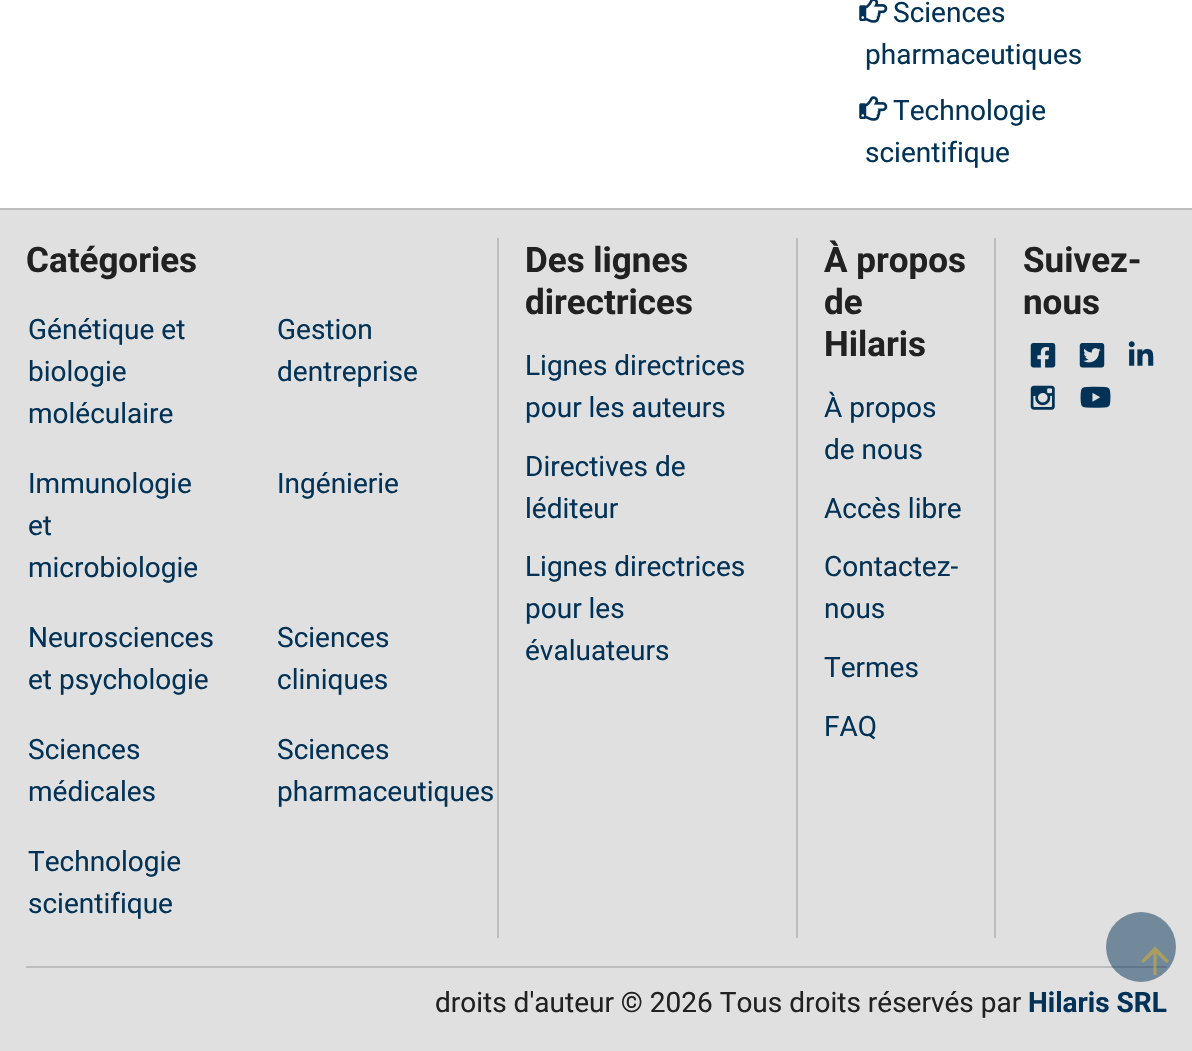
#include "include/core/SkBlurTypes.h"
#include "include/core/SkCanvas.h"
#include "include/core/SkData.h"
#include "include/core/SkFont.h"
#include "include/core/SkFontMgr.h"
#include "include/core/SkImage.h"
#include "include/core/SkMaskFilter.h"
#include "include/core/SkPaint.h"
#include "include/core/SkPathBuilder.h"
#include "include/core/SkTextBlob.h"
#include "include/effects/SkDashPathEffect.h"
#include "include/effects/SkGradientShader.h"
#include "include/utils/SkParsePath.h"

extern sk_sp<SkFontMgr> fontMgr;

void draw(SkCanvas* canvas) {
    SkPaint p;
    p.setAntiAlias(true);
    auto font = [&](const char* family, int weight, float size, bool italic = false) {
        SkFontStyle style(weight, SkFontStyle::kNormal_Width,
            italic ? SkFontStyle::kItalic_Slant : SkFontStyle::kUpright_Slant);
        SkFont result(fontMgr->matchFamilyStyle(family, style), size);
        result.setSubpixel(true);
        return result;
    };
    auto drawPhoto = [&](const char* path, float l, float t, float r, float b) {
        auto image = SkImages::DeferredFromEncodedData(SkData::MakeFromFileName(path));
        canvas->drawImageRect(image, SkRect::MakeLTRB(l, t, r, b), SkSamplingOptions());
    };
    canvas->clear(0xFFFFFFFF);
    drawPhoto("media/1.png", 859, 0, 888, 23);
    auto font1 = font("Roboto", 400, 28);
    p.setColor(0xFF023256);
    canvas->drawString("Sciences", 893, 22, font1, p);
    canvas->drawString("pharmaceutiques", 865, 64, font1, p);
    drawPhoto("media/2.png", 859, 96, 888, 121);
    canvas->drawString("Technologie", 893, 120, font1, p);
    canvas->drawString("scientifique", 865, 162, font1, p);
    p.setColor(0xFFE0E0E0);
    canvas->drawRect(SkRect::MakeLTRB(0, 210, 1192, 1051), p);
    p.setColor(0xFFBDBDBD);
    canvas->drawRect(SkRect::MakeLTRB(0, 208, 1192, 210), p);
    auto font2 = font("Roboto", 700, 35);
    p.setColor(0xFF212121);
    canvas->drawString("Catégories", 26, 272, font2, p);
    p.setColor(0xFF023256);
    {
        const struct { const char* s; float x, y; } items[] = {
            {"Génétique et", 28, 339},
            {"biologie", 28, 381},
            {"moléculaire", 28, 423},
            {"Gestion", 277, 339},
            {"dentreprise", 277, 381},
            {"Immunologie", 28, 493},
            {"et", 28, 535},
            {"microbiologie", 28, 577},
            {"Ingénierie", 277, 493},
            {"Neurosciences", 28, 647},
            {"et psychologie", 28, 689},
            {"Sciences", 277, 647},
            {"cliniques", 277, 689},
            {"Sciences", 28, 759},
            {"médicales", 28, 801},
            {"Sciences", 277, 759},
            {"pharmaceutiques", 277, 801},
            {"Technologie", 28, 871},
            {"scientifique", 28, 913},
        };
        for (auto [s, x, y] : items) {
            canvas->drawString(s, x, y, font1, p);
        }
    }
    p.setColor(0xFFBDBDBD);
    canvas->drawRect(SkRect::MakeLTRB(497, 238, 499, 938), p);
    p.setColor(0xFF212121);
    canvas->drawString("Des lignes", 525, 272, font2, p);
    canvas->drawString("directrices", 525, 314, font2, p);
    p.setColor(0xFF023256);
    {
        const struct { const char* s; float x, y; } items[] = {
            {"Lignes directrices", 525, 375},
            {"pour les auteurs", 525, 417},
            {"Directives de", 525, 476},
            {"léditeur", 525, 518},
            {"Lignes directrices", 525, 576},
            {"pour les", 525, 618},
            {"évaluateurs", 525, 660},
        };
        for (auto [s, x, y] : items) {
            canvas->drawString(s, x, y, font1, p);
        }
    }
    p.setColor(0xFFBDBDBD);
    canvas->drawRect(SkRect::MakeLTRB(796, 238, 798, 938), p);
    p.setColor(0xFF212121);
    {
        const struct { const char* s; float x, y; } items[] = {
            {"À propos", 824, 272},
            {"de", 824, 314},
            {"Hilaris", 824, 356},
        };
        for (auto [s, x, y] : items) {
            canvas->drawString(s, x, y, font2, p);
        }
    }
    p.setColor(0xFF023256);
    {
        const struct { const char* s; float x, y; } items[] = {
            {"À propos", 824, 417},
            {"de nous", 824, 459},
            {"Accès libre", 824, 518},
            {"Contactez-", 824, 576},
            {"nous", 824, 618},
            {"Termes", 824, 677},
            {"FAQ", 824, 736},
        };
        for (auto [s, x, y] : items) {
            canvas->drawString(s, x, y, font1, p);
        }
    }
    p.setColor(0xFFBDBDBD);
    canvas->drawRect(SkRect::MakeLTRB(994, 238, 996, 938), p);
    p.setColor(0xFF212121);
    canvas->drawString("Suivez-", 1023, 272, font2, p);
    canvas->drawString("nous", 1023, 314, font2, p);
    drawPhoto("media/3.png", 1030, 343, 1056, 368);
    drawPhoto("media/4.png", 1079, 343, 1105, 368);
    drawPhoto("media/5.png", 1128, 341, 1154, 366);
    drawPhoto("media/6.png", 1030, 385, 1055, 410);
    drawPhoto("media/7.png", 1080, 386, 1111, 408);
    p.setColor(0xFFBDBDBD);
    canvas->drawRect(SkRect::MakeLTRB(26, 966, 1167, 968), p);
    p.setColor(0xFF212121);
    canvas->drawString("droits d'auteur © 2026 Tous droits réservés par", 435, 1012, font1, p);
    auto font3 = font("Roboto", 700, 28);
    p.setColor(0xFF023256);
    canvas->drawString("Hilaris SRL", 1028, 1012, font3, p);
    p.setColor(0x80023256);
    canvas->drawCircle(1141, 947, 35, p);
    p.setColor(0x80E8B31F);
    canvas->drawPath(SkPathBuilder().moveTo(1141, 961).lineTo(1155, 946.5f).lineTo(1169, 961).lineTo(1166.5f, 963).lineTo(1156.5f, 953.5f).lineTo(1156.5f, 975).lineTo(1153.5f, 975).lineTo(1153.5f, 953.5f).lineTo(1143.5f, 963).close().detach(), p);
}
